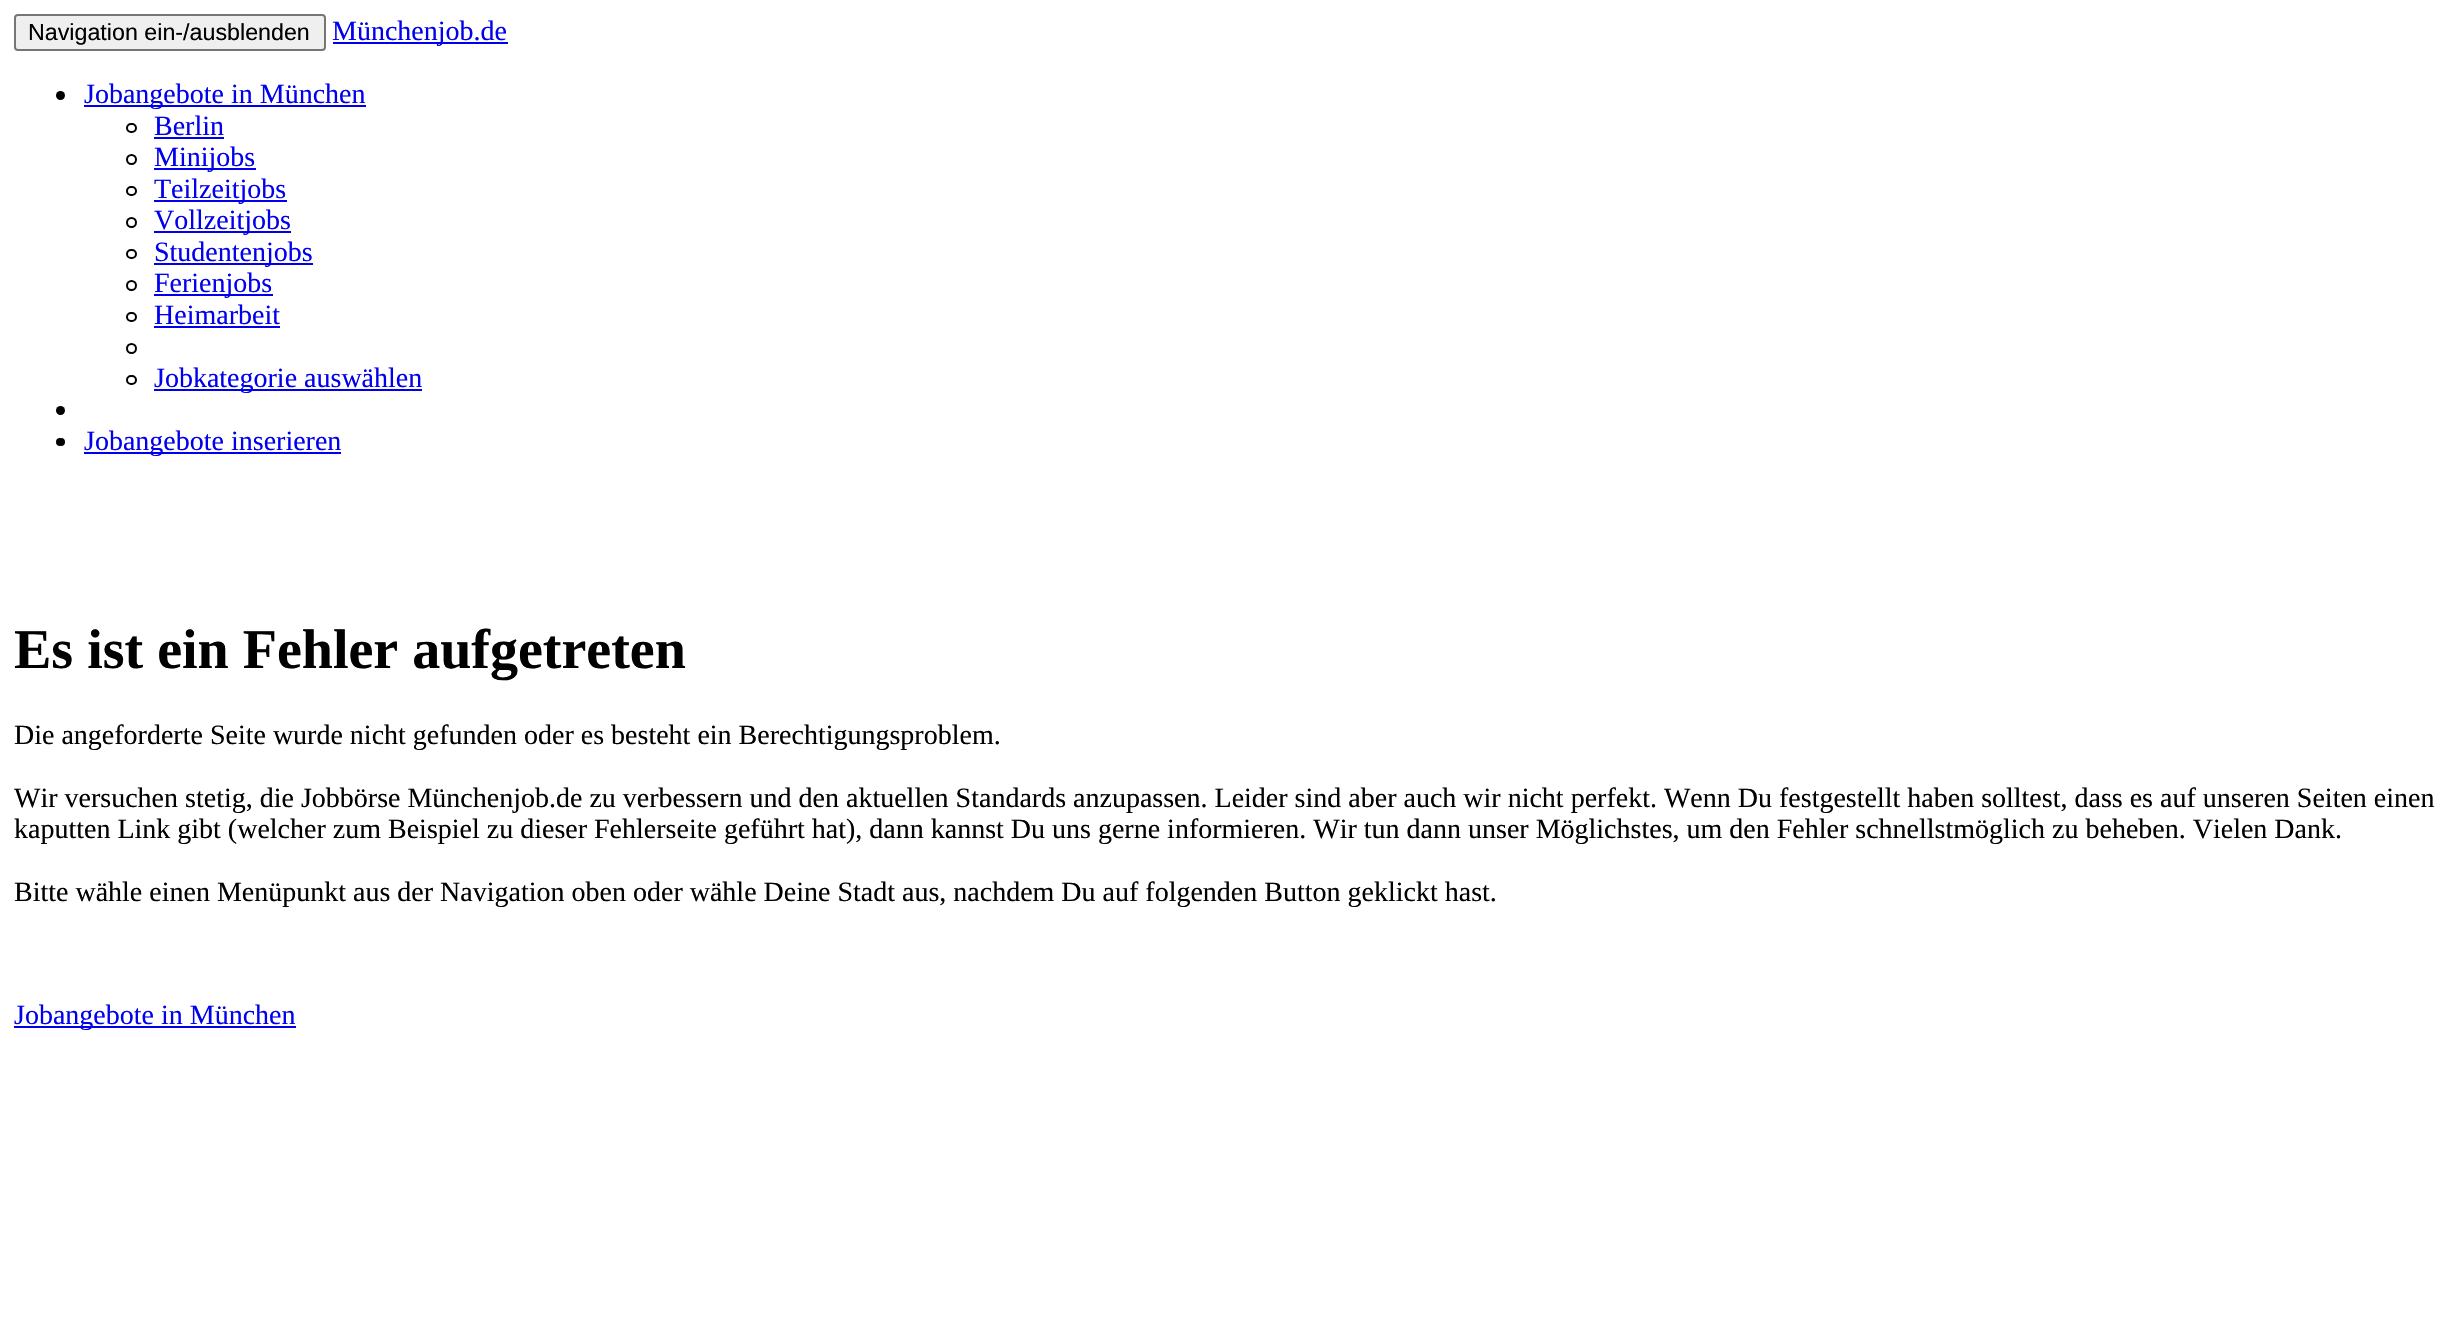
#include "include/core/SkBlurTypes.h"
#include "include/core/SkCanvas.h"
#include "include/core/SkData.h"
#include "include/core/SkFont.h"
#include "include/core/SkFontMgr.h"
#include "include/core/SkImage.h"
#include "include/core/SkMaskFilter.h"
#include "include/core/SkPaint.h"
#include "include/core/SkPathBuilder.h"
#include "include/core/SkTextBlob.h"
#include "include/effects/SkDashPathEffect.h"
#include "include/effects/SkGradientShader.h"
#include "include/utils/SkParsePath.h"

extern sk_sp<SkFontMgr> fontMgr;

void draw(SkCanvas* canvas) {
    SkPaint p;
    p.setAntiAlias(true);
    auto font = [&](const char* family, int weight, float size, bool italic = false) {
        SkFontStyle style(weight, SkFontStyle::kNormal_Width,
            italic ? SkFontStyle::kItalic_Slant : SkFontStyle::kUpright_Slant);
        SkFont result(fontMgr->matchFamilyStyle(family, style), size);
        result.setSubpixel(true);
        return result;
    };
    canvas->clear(0xFFFFFFFF);
    p.setColor(0xFFEFEFEF);
    canvas->drawRoundRect(SkRect::MakeLTRB(15, 15, 325, 50), 3, 3, p);
    p.setStyle(SkPaint::kStroke_Style);
    p.setStrokeWidth(2);
    p.setColor(0xFF767676);
    canvas->drawRoundRect(SkRect::MakeLTRB(15, 15, 325, 50), 3, 3, p);
    auto font1 = font("Liberation Sans", 400, 23.25f);
    p.setStyle(SkPaint::kFill_Style);
    p.setColor(0xFF000000);
    canvas->drawString("Navigation ein-/ausblenden", 28, 40, font1, p);
    p.setColor(0xFF0000EE);
    canvas->drawRect(SkRect::MakeLTRB(333, 42, 508, 44), p);
    auto font2 = font("Liberation Serif", 400, 28);
    canvas->drawString("Münchenjob.de", 332, 40, font2, p);
    p.setColor(0xFF000000);
    canvas->drawCircle(60.5f, 95.5f, 4.5f, p);
    p.setColor(0xFF0000EE);
    canvas->drawRect(SkRect::MakeLTRB(84, 105, 366, 107), p);
    canvas->drawString("Jobangebote in München", 84, 103, font2, p);
    p.setStyle(SkPaint::kStroke_Style);
    p.setColor(0xFF000000);
    canvas->drawRoundRect(SkRect::MakeLTRB(127, 124, 136, 132), 4, 4, p);
    p.setStyle(SkPaint::kFill_Style);
    p.setColor(0xFF0000EE);
    canvas->drawString("Berlin", 154, 135, font2, p);
    canvas->drawRect(SkRect::MakeLTRB(154, 137, 224, 139), p);
    p.setStyle(SkPaint::kStroke_Style);
    p.setColor(0xFF000000);
    canvas->drawCircle(131.5f, 159.5f, 4.5f, p);
    p.setStyle(SkPaint::kFill_Style);
    p.setColor(0xFF0000EE);
    canvas->drawRect(SkRect::MakeLTRB(154, 168, 256, 170), p);
    canvas->drawString("Minijobs", 154, 166, font2, p);
    p.setStyle(SkPaint::kStroke_Style);
    p.setColor(0xFF000000);
    canvas->drawRoundRect(SkRect::MakeLTRB(127, 187, 136, 195), 4, 4, p);
    p.setStyle(SkPaint::kFill_Style);
    p.setColor(0xFF0000EE);
    canvas->drawRect(SkRect::MakeLTRB(154, 200, 287, 202), p);
    canvas->drawString("Teilzeitjobs", 154, 198, font2, p);
    p.setStyle(SkPaint::kStroke_Style);
    p.setColor(0xFF000000);
    canvas->drawCircle(131.5f, 222.5f, 4.5f, p);
    p.setStyle(SkPaint::kFill_Style);
    p.setColor(0xFF0000EE);
    canvas->drawRect(SkRect::MakeLTRB(154, 231, 291, 233), p);
    canvas->drawString("Vollzeitjobs", 154, 229, font2, p);
    p.setStyle(SkPaint::kStroke_Style);
    p.setColor(0xFF000000);
    canvas->drawRoundRect(SkRect::MakeLTRB(127, 250, 136, 258), 4, 4, p);
    p.setStyle(SkPaint::kFill_Style);
    p.setColor(0xFF0000EE);
    canvas->drawRect(SkRect::MakeLTRB(154, 263, 313, 265), p);
    canvas->drawString("Studentenjobs", 154, 261, font2, p);
    p.setStyle(SkPaint::kStroke_Style);
    p.setColor(0xFF000000);
    canvas->drawCircle(131.5f, 285.5f, 4.5f, p);
    p.setStyle(SkPaint::kFill_Style);
    p.setColor(0xFF0000EE);
    canvas->drawRect(SkRect::MakeLTRB(154, 294, 273, 296), p);
    canvas->drawString("Ferienjobs", 154, 292, font2, p);
    p.setStyle(SkPaint::kStroke_Style);
    p.setColor(0xFF000000);
    canvas->drawRoundRect(SkRect::MakeLTRB(127, 313, 136, 321), 4, 4, p);
    p.setStyle(SkPaint::kFill_Style);
    p.setColor(0xFF0000EE);
    canvas->drawString("Heimarbeit", 154, 324, font2, p);
    canvas->drawRect(SkRect::MakeLTRB(154, 326, 280, 328), p);
    p.setStyle(SkPaint::kStroke_Style);
    p.setColor(0xFF000000);
    canvas->drawCircle(131.5f, 348.5f, 4.5f, p);
    canvas->drawRoundRect(SkRect::MakeLTRB(127, 376, 136, 384), 4, 4, p);
    p.setStyle(SkPaint::kFill_Style);
    p.setColor(0xFF0000EE);
    canvas->drawRect(SkRect::MakeLTRB(154, 389, 422, 391), p);
    canvas->drawString("Jobkategorie auswählen", 154, 387, font2, p);
    p.setColor(0xFF000000);
    canvas->drawCircle(60.5f, 410.5f, 4.5f, p);
    canvas->drawRoundRect(SkRect::MakeLTRB(56, 438, 65, 446), 4, 4, p);
    p.setColor(0xFF0000EE);
    canvas->drawRect(SkRect::MakeLTRB(84, 452, 341, 454), p);
    canvas->drawString("Jobangebote inserieren", 84, 450, font2, p);
    auto font3 = font("Liberation Serif", 700, 56);
    p.setColor(0xFF000000);
    canvas->drawString("Es ist ein Fehler aufgetreten", 14, 668, font3, p);
    {
        const struct { const char* s; float x, y; } items[] = {
            {"Die angeforderte Seite wurde nicht gefunden oder es besteht ein Berechtigungsproblem.", 14, 744},
            {"Wir versuchen stetig, die Jobbörse Münchenjob.de zu verbessern und den aktuellen Standards anzupassen. Leider sind aber auch wir nicht perfekt. Wenn Du festgestellt haben solltest, dass es auf unseren Seiten einen", 14, 807},
            {"kaputten Link gibt (welcher zum Beispiel zu dieser Fehlerseite geführt hat), dann kannst Du uns gerne informieren. Wir tun dann unser Möglichstes, um den Fehler schnellstmöglich zu beheben. Vielen Dank.", 14, 838},
            {"Bitte wähle einen Menüpunkt aus der Navigation oben oder wähle Deine Stadt aus, nachdem Du auf folgenden Button geklickt hast.", 14, 901},
        };
        for (auto [s, x, y] : items) {
            canvas->drawString(s, x, y, font2, p);
        }
    }
    p.setColor(0xFF0000EE);
    canvas->drawRect(SkRect::MakeLTRB(14, 1026, 296, 1028), p);
    canvas->drawString("Jobangebote in München", 14, 1024, font2, p);
}
